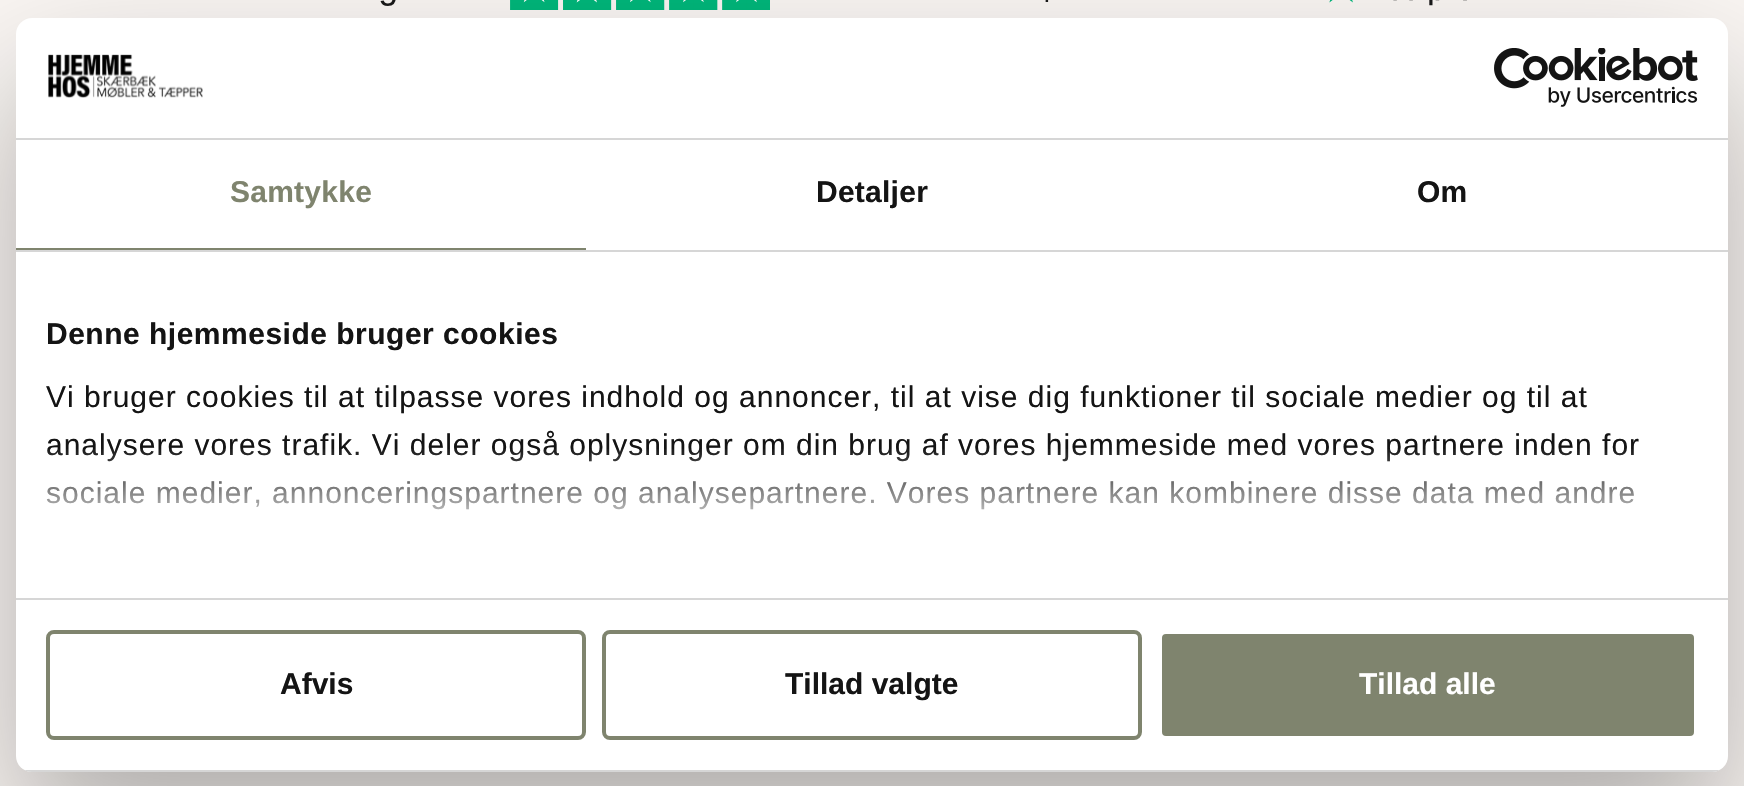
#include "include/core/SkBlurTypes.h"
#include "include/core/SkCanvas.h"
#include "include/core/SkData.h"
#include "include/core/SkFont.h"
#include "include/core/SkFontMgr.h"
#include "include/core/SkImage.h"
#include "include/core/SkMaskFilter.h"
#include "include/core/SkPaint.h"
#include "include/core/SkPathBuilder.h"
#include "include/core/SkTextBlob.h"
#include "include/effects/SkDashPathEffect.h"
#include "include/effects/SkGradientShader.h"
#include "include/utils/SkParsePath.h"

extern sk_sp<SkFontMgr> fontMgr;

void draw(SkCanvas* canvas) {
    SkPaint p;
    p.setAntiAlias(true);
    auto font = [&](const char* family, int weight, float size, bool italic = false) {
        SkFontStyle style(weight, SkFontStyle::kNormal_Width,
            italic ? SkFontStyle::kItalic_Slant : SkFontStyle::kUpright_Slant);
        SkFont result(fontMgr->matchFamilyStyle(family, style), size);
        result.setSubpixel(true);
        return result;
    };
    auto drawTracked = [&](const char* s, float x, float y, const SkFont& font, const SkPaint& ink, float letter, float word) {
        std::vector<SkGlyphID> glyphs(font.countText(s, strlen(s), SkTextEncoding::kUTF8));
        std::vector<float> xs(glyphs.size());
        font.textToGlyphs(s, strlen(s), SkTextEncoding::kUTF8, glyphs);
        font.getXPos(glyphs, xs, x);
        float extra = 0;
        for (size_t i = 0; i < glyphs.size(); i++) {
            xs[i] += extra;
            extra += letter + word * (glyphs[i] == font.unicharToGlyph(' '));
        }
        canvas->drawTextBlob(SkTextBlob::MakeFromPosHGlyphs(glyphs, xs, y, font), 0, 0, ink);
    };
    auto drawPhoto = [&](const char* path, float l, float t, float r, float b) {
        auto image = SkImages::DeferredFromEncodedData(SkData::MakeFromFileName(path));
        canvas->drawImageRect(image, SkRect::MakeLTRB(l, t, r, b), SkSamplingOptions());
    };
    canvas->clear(0xFFFAF6F3);
    drawPhoto("media/1.png", 380, 0, 1467, 10);
    p.setColor(0x4D000000);
    p.setMaskFilter(SkMaskFilter::MakeBlur(kNormal_SkBlurStyle, 68));
    canvas->drawRoundRect(SkRect::MakeLTRB(16, 82, 1728, 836), 16, 16, p);
    p.setMaskFilter(nullptr);
    p.setColor(0xFFFFFFFF);
    canvas->drawRoundRect(SkRect::MakeLTRB(16, 18, 1728, 772), 16, 16, p);
    p.setColor(0xFFD6D6D6);
    canvas->drawRect(SkRect::MakeLTRB(16, 138, 1728, 140), p);
    drawPhoto("media/2.png", 48, 54, 203, 98);
    drawPhoto("media/3.png", 1494, 48, 1698, 107);
    canvas->drawRect(SkRect::MakeLTRB(16, 250, 1728, 252), p);
    p.setColor(0xFF7F846E);
    canvas->drawRect(SkRect::MakeLTRB(16, 248, 586, 250), p);
    auto font1 = font("Liberation Sans", 700, 30);
    drawTracked("Samtykke", 230, 202, font1, p, 0.25f, 0);
    p.setColor(0xFF141414);
    drawTracked("Detaljer", 816, 202, font1, p, 0.25f, 0);
    drawTracked("Om", 1417, 202, font1, p, 0.25f, 0);
    p.setColor(0xFFD6D6D6);
    canvas->drawRect(SkRect::MakeLTRB(16, 598, 1728, 600), p);
    p.setColor(0xFF141414);
    drawTracked("Denne hjemmeside bruger cookies", 46, 344, font1, p, 0.5f, 0);
    auto font2 = font("Liberation Sans", 400, 30);
    {
        const struct { const char* s; float x, y; } items[] = {
            {"Vi bruger cookies til at tilpasse vores indhold og annoncer, til at vise dig funktioner til sociale medier og til at", 46, 407},
            {"analysere vores trafik. Vi deler også oplysninger om din brug af vores hjemmeside med vores partnere inden for", 46, 455},
            {"sociale medier, annonceringspartnere og analysepartnere. Vores partnere kan kombinere disse data med andre", 46, 503},
        };
        for (auto [s, x, y] : items) {
            drawTracked(s, x, y, font2, p, 1, 0);
        }
    }
    {
        const SkColor colors[] = {0xFFFFFFFF, 0xCCFFFFFF, 0x00FFFFFF};
        const float stops[] = {0, 0.5f, 1};
        const SkPoint ends[] = {{859, 597}, {859, 447}};
        p.setShader(SkGradientShader::MakeLinear(ends, colors, stops, 3, SkTileMode::kClamp));
        p.setAlpha(255);
    }
    canvas->drawRect(SkRect::MakeLTRB(46, 449, 1634, 510), p);
    canvas->save();
    canvas->clipPath(SkPathBuilder().moveTo(32, 18).lineTo(1712, 18).cubicTo(1721, 18, 1728, 25, 1728, 34).lineTo(1728, 756).cubicTo(1728, 765, 1721, 772, 1712, 772).lineTo(32, 772).cubicTo(23, 772, 16, 765, 16, 756).lineTo(16, 34).cubicTo(16, 25, 23, 18, 32, 18).close().detach(), true);
    p.setShader(nullptr);
    p.setColor(0xFFD6D6D6);
    canvas->drawRect(SkRect::MakeLTRB(16, 770, 1728, 772), p);
    canvas->restore();
    p.setStyle(SkPaint::kStroke_Style);
    p.setStrokeWidth(4);
    p.setColor(0xFF7F846E);
    canvas->drawRoundRect(SkRect::MakeLTRB(48, 632, 584, 738), 6, 6, p);
    p.setStyle(SkPaint::kFill_Style);
    p.setColor(0xFF141414);
    canvas->drawString("Afvis", 280, 694, font1, p);
    p.setStyle(SkPaint::kStroke_Style);
    p.setColor(0xFF7F846E);
    canvas->drawRoundRect(SkRect::MakeLTRB(604, 632, 1140, 738), 6, 6, p);
    p.setStyle(SkPaint::kFill_Style);
    p.setColor(0xFF141414);
    canvas->drawString("Tillad valgte", 785, 694, font1, p);
    p.setColor(0xFF7F846E);
    canvas->drawRoundRect(SkRect::MakeLTRB(1160, 632, 1696, 738), 6, 6, p);
    p.setStyle(SkPaint::kStroke_Style);
    p.setColor(0xFFFFFFFF);
    canvas->drawRoundRect(SkRect::MakeLTRB(1160, 632, 1696, 738), 6, 6, p);
    p.setStyle(SkPaint::kFill_Style);
    canvas->drawString("Tillad alle", 1359, 694, font1, p);
}
